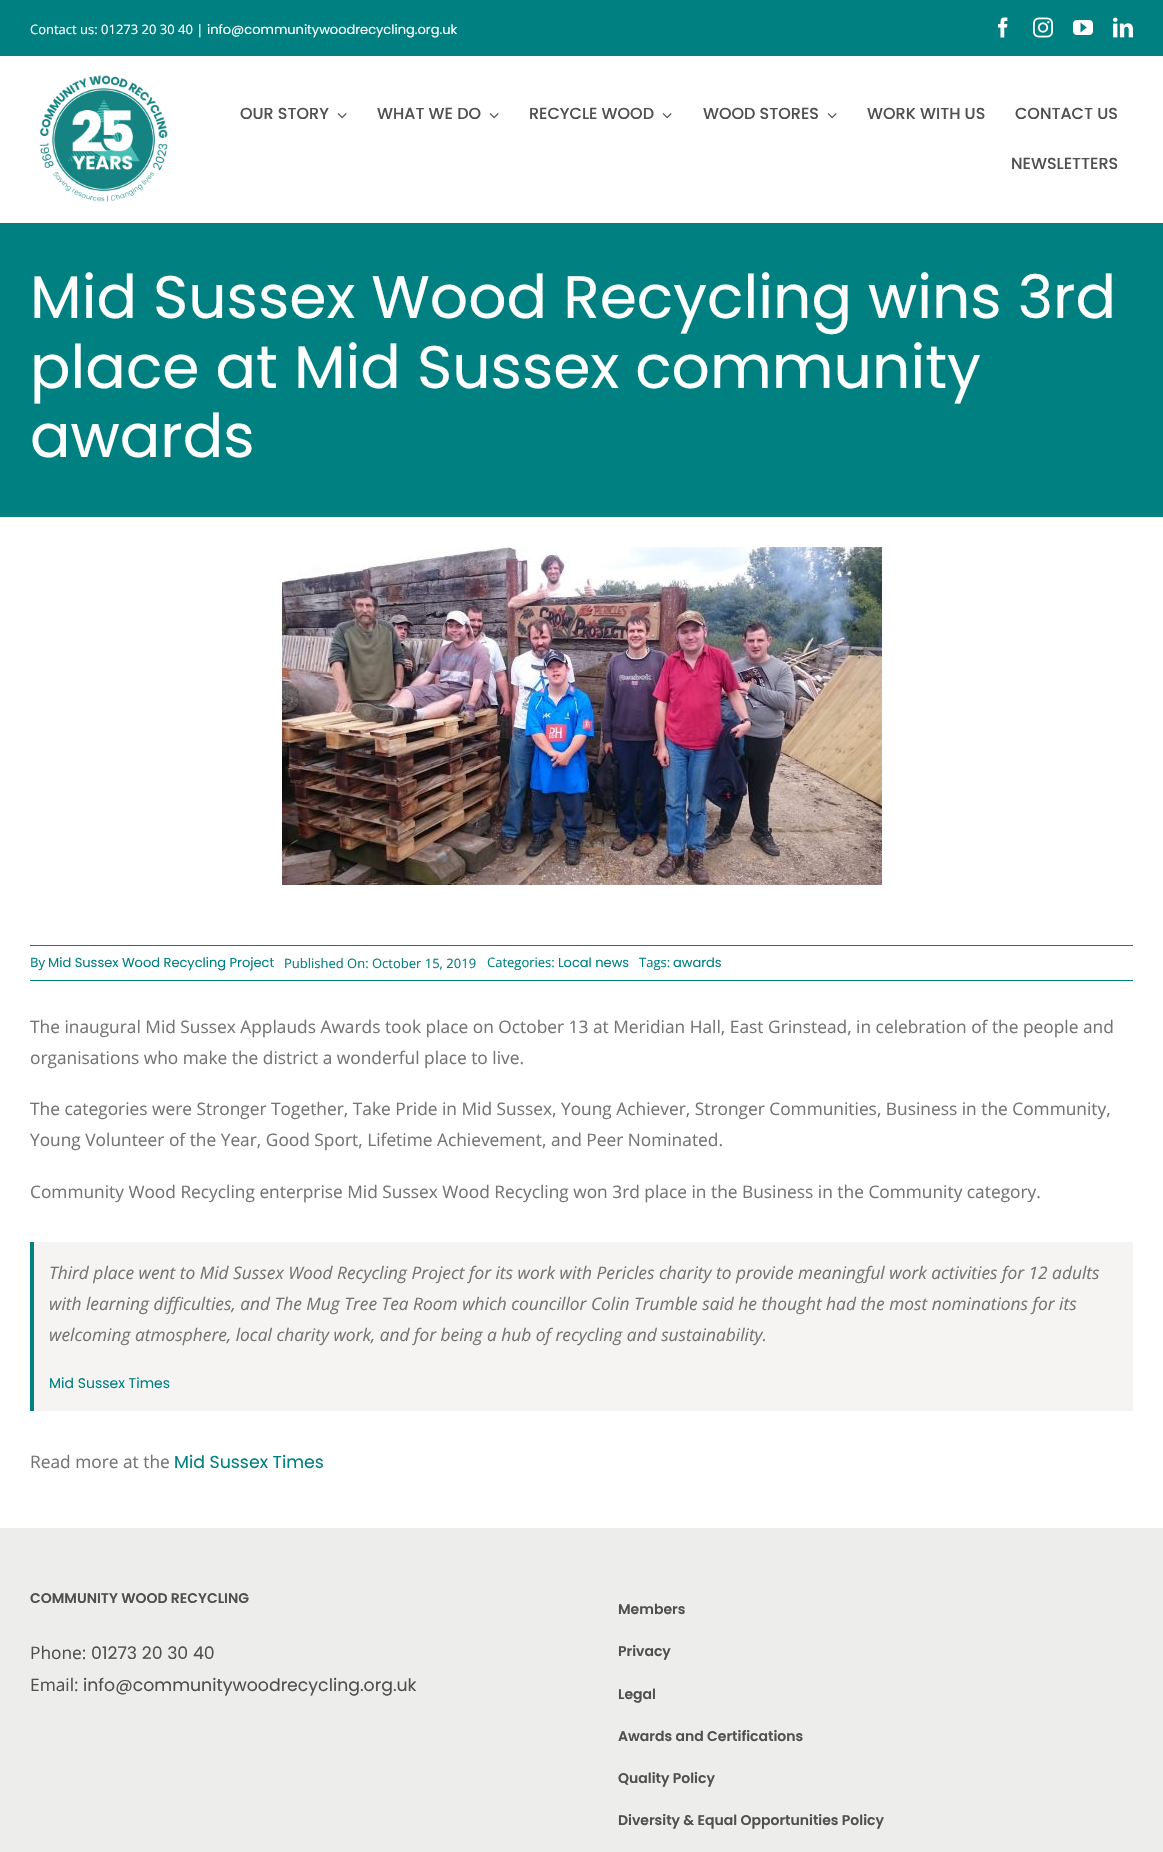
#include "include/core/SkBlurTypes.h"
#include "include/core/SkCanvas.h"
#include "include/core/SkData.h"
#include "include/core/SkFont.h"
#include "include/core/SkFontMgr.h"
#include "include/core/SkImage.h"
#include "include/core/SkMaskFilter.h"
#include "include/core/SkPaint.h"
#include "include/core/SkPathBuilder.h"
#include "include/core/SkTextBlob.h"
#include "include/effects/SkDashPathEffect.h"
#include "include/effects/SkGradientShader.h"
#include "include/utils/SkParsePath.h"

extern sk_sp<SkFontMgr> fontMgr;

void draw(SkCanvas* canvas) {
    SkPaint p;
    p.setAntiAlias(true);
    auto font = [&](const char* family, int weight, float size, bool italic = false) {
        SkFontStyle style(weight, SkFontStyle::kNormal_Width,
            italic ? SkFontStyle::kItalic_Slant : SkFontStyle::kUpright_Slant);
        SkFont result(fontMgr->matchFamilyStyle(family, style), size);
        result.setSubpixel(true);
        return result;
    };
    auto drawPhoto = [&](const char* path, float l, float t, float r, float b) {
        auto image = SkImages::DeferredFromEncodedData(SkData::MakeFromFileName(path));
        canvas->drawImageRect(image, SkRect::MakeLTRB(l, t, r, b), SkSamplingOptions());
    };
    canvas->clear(0xFFFFFFFF);
    p.setColor(0xFF008080);
    canvas->drawRect(SkRect::MakeLTRB(0, 0, 1163, 56), p);
    auto font1 = font("Open Sans", 400, 13);
    p.setColor(0xFFFFFFFF);
    canvas->drawString("Contact us: 01273 20 30 40 |", 30, 34, font1, p);
    auto font2 = font("Poppins", 400, 13);
    canvas->drawString("info@communitywoodrecycling.org.uk", 207, 34, font2, p);
    drawPhoto("media/1.png", 998, 17, 1008, 38);
    drawPhoto("media/2.png", 1033, 17, 1053, 38);
    drawPhoto("media/3.png", 1073, 20, 1093, 35);
    drawPhoto("media/4.png", 1113, 17, 1133, 38);
    drawPhoto("media/5.png", 39, 75, 168, 202);
    auto font3 = font("Poppins", 500, 16);
    p.setColor(0xFF505050);
    canvas->drawString("OUR STORY", 240, 119, font3, p);
    drawPhoto("media/6.png", 337, 113, 347, 119);
    canvas->drawString("WHAT WE DO", 377, 119, font3, p);
    drawPhoto("media/6.png", 489, 113, 499, 119);
    canvas->drawString("RECYCLE WOOD", 529, 119, font3, p);
    drawPhoto("media/6.png", 662, 113, 672, 119);
    canvas->drawString("WOOD STORES", 703, 119, font3, p);
    drawPhoto("media/6.png", 827, 113, 837, 119);
    {
        const struct { const char* s; float x, y; } items[] = {
            {"WORK WITH US", 867, 119},
            {"CONTACT US", 1015, 119},
            {"NEWSLETTERS", 1011, 169},
        };
        for (auto [s, x, y] : items) {
            canvas->drawString(s, x, y, font3, p);
        }
    }
    p.setColor(0xFF008080);
    canvas->drawRect(SkRect::MakeLTRB(0, 223, 1163, 517), p);
    auto font4 = font("Poppins", 400, 60);
    p.setColor(0xFFFFFFFF);
    {
        const struct { const char* s; float x, y; } items[] = {
            {"Mid Sussex Wood Recycling wins 3rd", 30, 318},
            {"place at Mid Sussex community", 30, 388},
            {"awards", 30, 457},
        };
        for (auto [s, x, y] : items) {
            canvas->drawString(s, x, y, font4, p);
        }
    }
    drawPhoto("media/7.png", 282, 547, 882, 885);
    p.setColor(0xFF008080);
    canvas->drawRect(SkRect::MakeLTRB(30, 945, 1133, 946), p);
    canvas->drawRect(SkRect::MakeLTRB(30, 980, 1133, 981), p);
    canvas->drawString("By", 30, 967, font1, p);
    canvas->drawString("Mid Sussex Wood Recycling Project", 48, 967, font2, p);
    canvas->drawString("Published On: October 15, 2019", 284, 968, font1, p);
    canvas->drawString("Categories:", 487, 967, font1, p);
    canvas->drawString("Local news", 558, 967, font2, p);
    canvas->drawString("Tags:", 639, 967, font1, p);
    canvas->drawString("awards", 673, 967, font2, p);
    auto font5 = font("Open Sans", 400, 17.33f);
    p.setColor(0xFF747474);
    {
        const struct { const char* s; float x, y; } items[] = {
            {"The inaugural Mid Sussex Applauds Awards took place on October 13 at Meridian Hall, East Grinstead, in celebration of the people and", 30, 1033},
            {"organisations who make the district a wonderful place to live.", 30, 1064},
            {"The categories were Stronger Together, Take Pride in Mid Sussex, Young Achiever, Stronger Communities, Business in the Community,", 30, 1115},
            {"Young Volunteer of the Year, Good Sport, Lifetime Achievement, and Peer Nominated.", 30, 1146},
            {"Community Wood Recycling enterprise Mid Sussex Wood Recycling won 3rd place in the Business in the Community category.", 30, 1198},
        };
        for (auto [s, x, y] : items) {
            canvas->drawString(s, x, y, font5, p);
        }
    }
    p.setColor(0xFFF6F3F3);
    canvas->drawRect(SkRect::MakeLTRB(34, 1242, 1133, 1411), p);
    p.setColor(0xFF008080);
    canvas->drawRect(SkRect::MakeLTRB(30, 1242, 34, 1411), p);
    auto font6 = font("Open Sans", 400, 17.33f, true);
    p.setColor(0xFF747474);
    {
        const struct { const char* s; float x, y; } items[] = {
            {"Third place went to Mid Sussex Wood Recycling Project for its work with Pericles charity to provide meaningful work activities for 12 adults", 49, 1279},
            {"with learning difficulties, and The Mug Tree Tea Room which councillor Colin Trumble said he thought had the most nominations for its", 49, 1310},
            {"welcoming atmosphere, local charity work, and for being a hub of recycling and sustainability.", 49, 1341},
        };
        for (auto [s, x, y] : items) {
            canvas->drawString(s, x, y, font6, p);
        }
    }
    auto font7 = font("Poppins", 400, 14);
    p.setColor(0xFF008080);
    canvas->drawString("Mid Sussex Times", 49, 1388, font7, p);
    p.setColor(0xFF747474);
    canvas->drawString("Read more at the", 30, 1468, font5, p);
    auto font8 = font("Poppins", 400, 17.33f);
    p.setColor(0xFF008080);
    canvas->drawString("Mid Sussex Times", 174, 1468, font8, p);
    p.setColor(0xFFEDEDEC);
    canvas->drawRect(SkRect::MakeLTRB(0, 1528, 1163, 1852), p);
    auto font9 = font("Poppins", 600, 14);
    p.setColor(0xFF505050);
    canvas->drawString("COMMUNITY WOOD RECYCLING", 30, 1603, font9, p);
    canvas->drawString("Phone:", 30, 1659, font5, p);
    canvas->drawString("01273 20 30 40", 91, 1659, font8, p);
    canvas->drawString("Email:", 30, 1691, font5, p);
    canvas->drawString("info@communitywoodrecycling.org.uk", 83, 1691, font8, p);
    {
        const struct { const char* s; float x, y; } items[] = {
            {"Members", 618, 1614},
            {"Privacy", 618, 1656},
            {"Legal", 618, 1699},
            {"Awards and Certifications", 618, 1741},
            {"Quality Policy", 618, 1783},
            {"Diversity & Equal Opportunities Policy", 618, 1825},
        };
        for (auto [s, x, y] : items) {
            canvas->drawString(s, x, y, font9, p);
        }
    }
}
